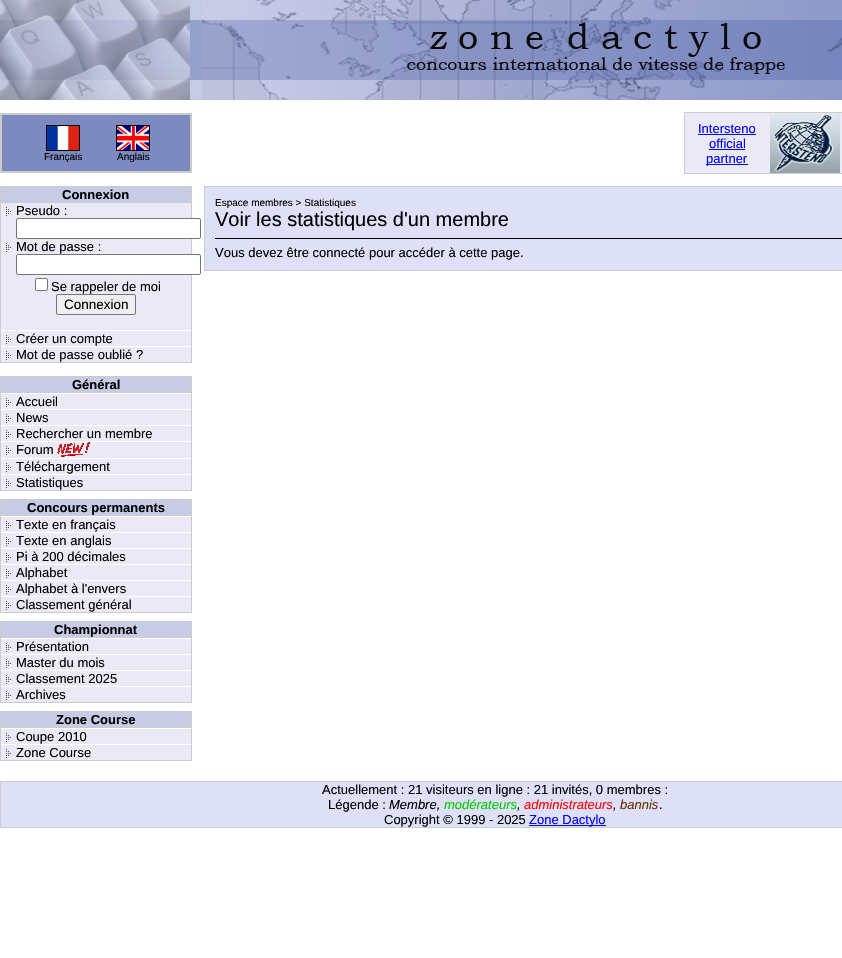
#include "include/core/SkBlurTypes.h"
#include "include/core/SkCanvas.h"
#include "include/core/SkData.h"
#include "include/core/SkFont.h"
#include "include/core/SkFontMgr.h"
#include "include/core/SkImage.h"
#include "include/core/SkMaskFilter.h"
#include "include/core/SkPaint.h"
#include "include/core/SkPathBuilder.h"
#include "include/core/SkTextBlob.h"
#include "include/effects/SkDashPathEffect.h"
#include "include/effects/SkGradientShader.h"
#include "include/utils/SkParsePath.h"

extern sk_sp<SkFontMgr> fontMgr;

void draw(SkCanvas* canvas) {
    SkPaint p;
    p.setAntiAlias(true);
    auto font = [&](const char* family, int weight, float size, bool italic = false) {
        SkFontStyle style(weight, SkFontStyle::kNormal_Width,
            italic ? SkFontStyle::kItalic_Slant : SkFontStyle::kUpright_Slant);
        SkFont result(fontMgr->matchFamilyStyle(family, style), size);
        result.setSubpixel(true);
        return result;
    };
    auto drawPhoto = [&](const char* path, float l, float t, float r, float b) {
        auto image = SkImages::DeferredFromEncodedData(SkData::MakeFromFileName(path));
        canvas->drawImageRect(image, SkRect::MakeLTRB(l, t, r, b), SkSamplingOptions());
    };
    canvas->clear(0xFFFFFFFF);
    drawPhoto("media/1.png", 0, 0, 842, 100);
    p.setColor(0xFF7C8AC1);
    canvas->drawRect(SkRect::MakeLTRB(1, 114, 191, 172), p);
    p.setStyle(SkPaint::kStroke_Style);
    p.setStrokeWidth(2);
    p.setColor(0xFFCCCCCC);
    canvas->drawRect(SkRect::MakeLTRB(1, 114, 191, 172), p);
    p.setStrokeWidth(1);
    p.setColor(0xFF000000);
    canvas->drawRect(SkRect::MakeLTRB(46.5f, 125.5f, 79.5f, 150.5f), p);
    drawPhoto("media/2.png", 47, 126, 79, 150);
    auto font1 = font("Liberation Sans", 400, 10);
    p.setStyle(SkPaint::kFill_Style);
    canvas->drawString("Français", 44, 160, font1, p);
    p.setStyle(SkPaint::kStroke_Style);
    canvas->drawRect(SkRect::MakeLTRB(116.5f, 125.5f, 149.5f, 150.5f), p);
    drawPhoto("media/3.png", 117, 126, 149, 150);
    p.setStyle(SkPaint::kFill_Style);
    canvas->drawString("Anglais", 117, 160, font1, p);
    p.setColor(0xFFEAE9F5);
    canvas->drawRect(SkRect::MakeLTRB(684.5f, 112.5f, 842.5f, 173.5f), p);
    p.setStyle(SkPaint::kStroke_Style);
    p.setColor(0xFFCCCCCC);
    canvas->drawRect(SkRect::MakeLTRB(684.5f, 112.5f, 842.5f, 173.5f), p);
    auto font2 = font("Liberation Sans", 400, 13);
    p.setStyle(SkPaint::kFill_Style);
    p.setColor(0xFF0000FF);
    canvas->drawString("Intersteno", 698, 133, font2, p);
    canvas->drawRect(SkRect::MakeLTRB(698, 134, 756, 135), p);
    canvas->drawString("official", 709, 148, font2, p);
    canvas->drawRect(SkRect::MakeLTRB(709, 149, 745, 150), p);
    canvas->drawRect(SkRect::MakeLTRB(706, 164, 748, 165), p);
    canvas->drawString("partner", 706, 163, font2, p);
    drawPhoto("media/4.png", 770, 113, 840, 173);
    p.setColor(0xFFEAE9F5);
    canvas->drawRect(SkRect::MakeLTRB(1, 203, 191, 362), p);
    p.setStyle(SkPaint::kStroke_Style);
    p.setColor(0xFFCCCCCC);
    canvas->drawRect(SkRect::MakeLTRB(0.5f, 186.5f, 191.5f, 362.5f), p);
    p.setStyle(SkPaint::kFill_Style);
    p.setColor(0xFFC7CBE6);
    canvas->drawRect(SkRect::MakeLTRB(1, 187, 191, 202), p);
    p.setColor(0xFFCCCCCC);
    canvas->drawRect(SkRect::MakeLTRB(1, 202, 191, 203), p);
    auto font3 = font("Liberation Sans", 700, 13);
    p.setColor(0xFF000000);
    canvas->drawString("Connexion", 62, 199, font3, p);
    drawPhoto("media/5.png", 6, 207, 11, 216);
    canvas->drawString("Pseudo :", 16, 215, font2, p);
    p.setColor(0xFFFFFFFF);
    canvas->drawRoundRect(SkRect::MakeLTRB(16.5f, 218.5f, 200.5f, 238.5f), 1.5f, 1.5f, p);
    p.setStyle(SkPaint::kStroke_Style);
    p.setColor(0xFF767676);
    canvas->drawRoundRect(SkRect::MakeLTRB(16.5f, 218.5f, 200.5f, 238.5f), 1.5f, 1.5f, p);
    drawPhoto("media/5.png", 6, 243, 11, 252);
    p.setStyle(SkPaint::kFill_Style);
    p.setColor(0xFF000000);
    canvas->drawString("Mot de passe :", 16, 251, font2, p);
    p.setColor(0xFFFFFFFF);
    canvas->drawRoundRect(SkRect::MakeLTRB(16.5f, 254.5f, 200.5f, 274.5f), 1.5f, 1.5f, p);
    p.setStyle(SkPaint::kStroke_Style);
    p.setColor(0xFF767676);
    canvas->drawRoundRect(SkRect::MakeLTRB(16.5f, 254.5f, 200.5f, 274.5f), 1.5f, 1.5f, p);
    p.setStyle(SkPaint::kFill_Style);
    p.setColor(0xFFFFFFFF);
    canvas->drawRoundRect(SkRect::MakeLTRB(35.5f, 278.5f, 47.5f, 290.5f), 1.5f, 1.5f, p);
    p.setStyle(SkPaint::kStroke_Style);
    p.setColor(0xFF767676);
    canvas->drawRoundRect(SkRect::MakeLTRB(35.5f, 278.5f, 47.5f, 290.5f), 1.5f, 1.5f, p);
    p.setStyle(SkPaint::kFill_Style);
    p.setColor(0xFF000000);
    canvas->drawString("Se rappeler de moi", 51, 291, font2, p);
    p.setColor(0xFFEFEFEF);
    canvas->drawRoundRect(SkRect::MakeLTRB(56.5f, 294.5f, 135.5f, 314.5f), 1.5f, 1.5f, p);
    p.setStyle(SkPaint::kStroke_Style);
    p.setColor(0xFF767676);
    canvas->drawRoundRect(SkRect::MakeLTRB(56.5f, 294.5f, 135.5f, 314.5f), 1.5f, 1.5f, p);
    auto font4 = font("Liberation Sans", 400, 13.5f);
    p.setStyle(SkPaint::kFill_Style);
    p.setColor(0xFF000000);
    canvas->drawString("Connexion", 64, 309, font4, p);
    drawPhoto("media/5.png", 6, 335, 11, 344);
    p.setColor(0xFFFFFFFF);
    canvas->drawRect(SkRect::MakeLTRB(1, 330, 191, 331), p);
    p.setColor(0xFF000000);
    canvas->drawString("Créer un compte", 16, 343, font2, p);
    drawPhoto("media/5.png", 6, 351, 11, 360);
    p.setColor(0xFFFFFFFF);
    canvas->drawRect(SkRect::MakeLTRB(1, 346, 191, 347), p);
    p.setColor(0xFF000000);
    canvas->drawString("Mot de passe oublié ?", 16, 359, font2, p);
    p.setColor(0xFFEAE9F5);
    canvas->drawRect(SkRect::MakeLTRB(1, 394, 191, 490), p);
    p.setStyle(SkPaint::kStroke_Style);
    p.setColor(0xFFCCCCCC);
    canvas->drawRect(SkRect::MakeLTRB(0.5f, 376.5f, 191.5f, 490.5f), p);
    p.setStyle(SkPaint::kFill_Style);
    p.setColor(0xFFC7CBE6);
    canvas->drawRect(SkRect::MakeLTRB(1, 377, 191, 392), p);
    p.setColor(0xFFCCCCCC);
    canvas->drawRect(SkRect::MakeLTRB(1, 392, 191, 393), p);
    p.setColor(0xFF000000);
    canvas->drawString("Général", 72, 389, font3, p);
    drawPhoto("media/5.png", 6, 398, 11, 407);
    canvas->drawString("Accueil", 16, 406, font2, p);
    drawPhoto("media/5.png", 6, 414, 11, 423);
    p.setColor(0xFFFFFFFF);
    canvas->drawRect(SkRect::MakeLTRB(1, 409, 191, 410), p);
    p.setColor(0xFF000000);
    canvas->drawString("News", 16, 422, font2, p);
    drawPhoto("media/5.png", 6, 430, 11, 439);
    p.setColor(0xFFFFFFFF);
    canvas->drawRect(SkRect::MakeLTRB(1, 425, 191, 426), p);
    p.setColor(0xFF000000);
    canvas->drawString("Rechercher un membre", 16, 438, font2, p);
    drawPhoto("media/5.png", 6, 446, 11, 455);
    p.setColor(0xFFFFFFFF);
    canvas->drawRect(SkRect::MakeLTRB(1, 441, 191, 442), p);
    p.setColor(0xFF000000);
    canvas->drawString("Forum", 16, 454, font2, p);
    drawPhoto("media/6.png", 57, 442, 90, 457);
    drawPhoto("media/5.png", 6, 463, 11, 472);
    p.setColor(0xFFFFFFFF);
    canvas->drawRect(SkRect::MakeLTRB(1, 458, 191, 459), p);
    p.setColor(0xFF000000);
    canvas->drawString("Téléchargement", 16, 471, font2, p);
    drawPhoto("media/5.png", 6, 479, 11, 488);
    p.setColor(0xFFFFFFFF);
    canvas->drawRect(SkRect::MakeLTRB(1, 474, 191, 475), p);
    p.setColor(0xFF000000);
    canvas->drawString("Statistiques", 16, 487, font2, p);
    p.setColor(0xFFEAE9F5);
    canvas->drawRect(SkRect::MakeLTRB(1, 517, 191, 612), p);
    p.setStyle(SkPaint::kStroke_Style);
    p.setColor(0xFFCCCCCC);
    canvas->drawRect(SkRect::MakeLTRB(0.5f, 499.5f, 191.5f, 612.5f), p);
    p.setStyle(SkPaint::kFill_Style);
    p.setColor(0xFFC7CBE6);
    canvas->drawRect(SkRect::MakeLTRB(1, 500, 191, 515), p);
    p.setColor(0xFFCCCCCC);
    canvas->drawRect(SkRect::MakeLTRB(1, 515, 191, 516), p);
    p.setColor(0xFF000000);
    canvas->drawString("Concours permanents", 27, 512, font3, p);
    drawPhoto("media/5.png", 6, 521, 11, 530);
    canvas->drawString("Texte en français", 16, 529, font2, p);
    drawPhoto("media/5.png", 6, 537, 11, 546);
    p.setColor(0xFFFFFFFF);
    canvas->drawRect(SkRect::MakeLTRB(1, 532, 191, 533), p);
    p.setColor(0xFF000000);
    canvas->drawString("Texte en anglais", 16, 545, font2, p);
    drawPhoto("media/5.png", 6, 553, 11, 562);
    p.setColor(0xFFFFFFFF);
    canvas->drawRect(SkRect::MakeLTRB(1, 548, 191, 549), p);
    p.setColor(0xFF000000);
    canvas->drawString("Pi à 200 décimales", 16, 561, font2, p);
    drawPhoto("media/5.png", 6, 569, 11, 578);
    p.setColor(0xFFFFFFFF);
    canvas->drawRect(SkRect::MakeLTRB(1, 564, 191, 565), p);
    p.setColor(0xFF000000);
    canvas->drawString("Alphabet", 16, 577, font2, p);
    drawPhoto("media/5.png", 6, 585, 11, 594);
    p.setColor(0xFFFFFFFF);
    canvas->drawRect(SkRect::MakeLTRB(1, 580, 191, 581), p);
    p.setColor(0xFF000000);
    canvas->drawString("Alphabet à l'envers", 16, 593, font2, p);
    drawPhoto("media/5.png", 6, 601, 11, 610);
    p.setColor(0xFFFFFFFF);
    canvas->drawRect(SkRect::MakeLTRB(1, 596, 191, 597), p);
    p.setColor(0xFF000000);
    canvas->drawString("Classement général", 16, 609, font2, p);
    p.setColor(0xFFEAE9F5);
    canvas->drawRect(SkRect::MakeLTRB(1, 639, 191, 702), p);
    p.setStyle(SkPaint::kStroke_Style);
    p.setColor(0xFFCCCCCC);
    canvas->drawRect(SkRect::MakeLTRB(0.5f, 621.5f, 191.5f, 702.5f), p);
    p.setStyle(SkPaint::kFill_Style);
    p.setColor(0xFFC7CBE6);
    canvas->drawRect(SkRect::MakeLTRB(1, 622, 191, 637), p);
    p.setColor(0xFFCCCCCC);
    canvas->drawRect(SkRect::MakeLTRB(1, 637, 191, 638), p);
    p.setColor(0xFF000000);
    canvas->drawString("Championnat", 54, 634, font3, p);
    drawPhoto("media/5.png", 6, 643, 11, 652);
    canvas->drawString("Présentation", 16, 651, font2, p);
    drawPhoto("media/5.png", 6, 659, 11, 668);
    p.setColor(0xFFFFFFFF);
    canvas->drawRect(SkRect::MakeLTRB(1, 654, 191, 655), p);
    p.setColor(0xFF000000);
    canvas->drawString("Master du mois", 16, 667, font2, p);
    drawPhoto("media/5.png", 6, 675, 11, 684);
    p.setColor(0xFFFFFFFF);
    canvas->drawRect(SkRect::MakeLTRB(1, 670, 191, 671), p);
    p.setColor(0xFF000000);
    canvas->drawString("Classement 2025", 16, 683, font2, p);
    drawPhoto("media/5.png", 6, 691, 11, 700);
    p.setColor(0xFFFFFFFF);
    canvas->drawRect(SkRect::MakeLTRB(1, 686, 191, 687), p);
    p.setColor(0xFF000000);
    canvas->drawString("Archives", 16, 699, font2, p);
    p.setColor(0xFFEAE9F5);
    canvas->drawRect(SkRect::MakeLTRB(1, 729, 191, 760), p);
    p.setStyle(SkPaint::kStroke_Style);
    p.setColor(0xFFCCCCCC);
    canvas->drawRect(SkRect::MakeLTRB(0.5f, 711.5f, 191.5f, 760.5f), p);
    p.setStyle(SkPaint::kFill_Style);
    p.setColor(0xFFC7CBE6);
    canvas->drawRect(SkRect::MakeLTRB(1, 712, 191, 727), p);
    p.setColor(0xFFCCCCCC);
    canvas->drawRect(SkRect::MakeLTRB(1, 727, 191, 728), p);
    p.setColor(0xFF000000);
    canvas->drawString("Zone Course", 56, 724, font3, p);
    drawPhoto("media/5.png", 6, 733, 11, 742);
    canvas->drawString("Coupe 2010", 16, 741, font2, p);
    drawPhoto("media/5.png", 6, 749, 11, 758);
    p.setColor(0xFFFFFFFF);
    canvas->drawRect(SkRect::MakeLTRB(1, 744, 191, 745), p);
    p.setColor(0xFF000000);
    canvas->drawString("Zone Course", 16, 757, font2, p);
    p.setColor(0xFFDDE0F7);
    canvas->drawRect(SkRect::MakeLTRB(204.5f, 186.5f, 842.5f, 270.5f), p);
    p.setStyle(SkPaint::kStroke_Style);
    p.setColor(0xFFCCCCCC);
    canvas->drawRect(SkRect::MakeLTRB(204.5f, 186.5f, 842.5f, 270.5f), p);
    p.setStyle(SkPaint::kFill_Style);
    p.setColor(0xFF000000);
    canvas->drawString("Espace membres > Statistiques", 215, 206, font1, p);
    auto font5 = font("Liberation Sans", 400, 20);
    canvas->drawString("Voir les statistiques d'un membre", 215, 226, font5, p);
    canvas->drawRect(SkRect::MakeLTRB(215, 238, 842, 239), p);
    canvas->drawString("Vous devez être connecté pour accéder à cette page.", 215, 257, font2, p);
    p.setColor(0xFFDDE0F7);
    canvas->drawRect(SkRect::MakeLTRB(0.5f, 781.5f, 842.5f, 827.5f), p);
    p.setStyle(SkPaint::kStroke_Style);
    p.setColor(0xFFCCCCCC);
    canvas->drawRect(SkRect::MakeLTRB(0.5f, 781.5f, 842.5f, 827.5f), p);
    p.setStyle(SkPaint::kFill_Style);
    p.setColor(0xFF000000);
    canvas->drawString("Actuellement : 21 visiteurs en ligne : 21 invités, 0 membres :", 322, 794, font2, p);
    canvas->drawString("Légende :", 328, 809, font2, p);
    auto font6 = font("Liberation Sans", 400, 13, true);
    canvas->drawString("Membre,", 389, 809, font6, p);
    p.setColor(0xFF00CC00);
    canvas->drawString("modérateurs", 444, 809, font6, p);
    p.setColor(0xFF000000);
    canvas->drawString(",", 517, 809, font6, p);
    p.setColor(0xFFFF0000);
    canvas->drawString("administrateurs", 524, 809, font6, p);
    p.setColor(0xFF000000);
    canvas->drawString(",", 613, 809, font6, p);
    p.setColor(0xFF663300);
    canvas->drawString("bannis", 620, 809, font6, p);
    p.setColor(0xFF000000);
    canvas->drawString(".", 659, 809, font2, p);
    canvas->drawString("Copyright © 1999 - 2025", 384, 824, font2, p);
    p.setColor(0xFF0000FF);
    canvas->drawRect(SkRect::MakeLTRB(529, 825, 606, 826), p);
    canvas->drawString("Zone Dactylo", 529, 824, font2, p);
}
